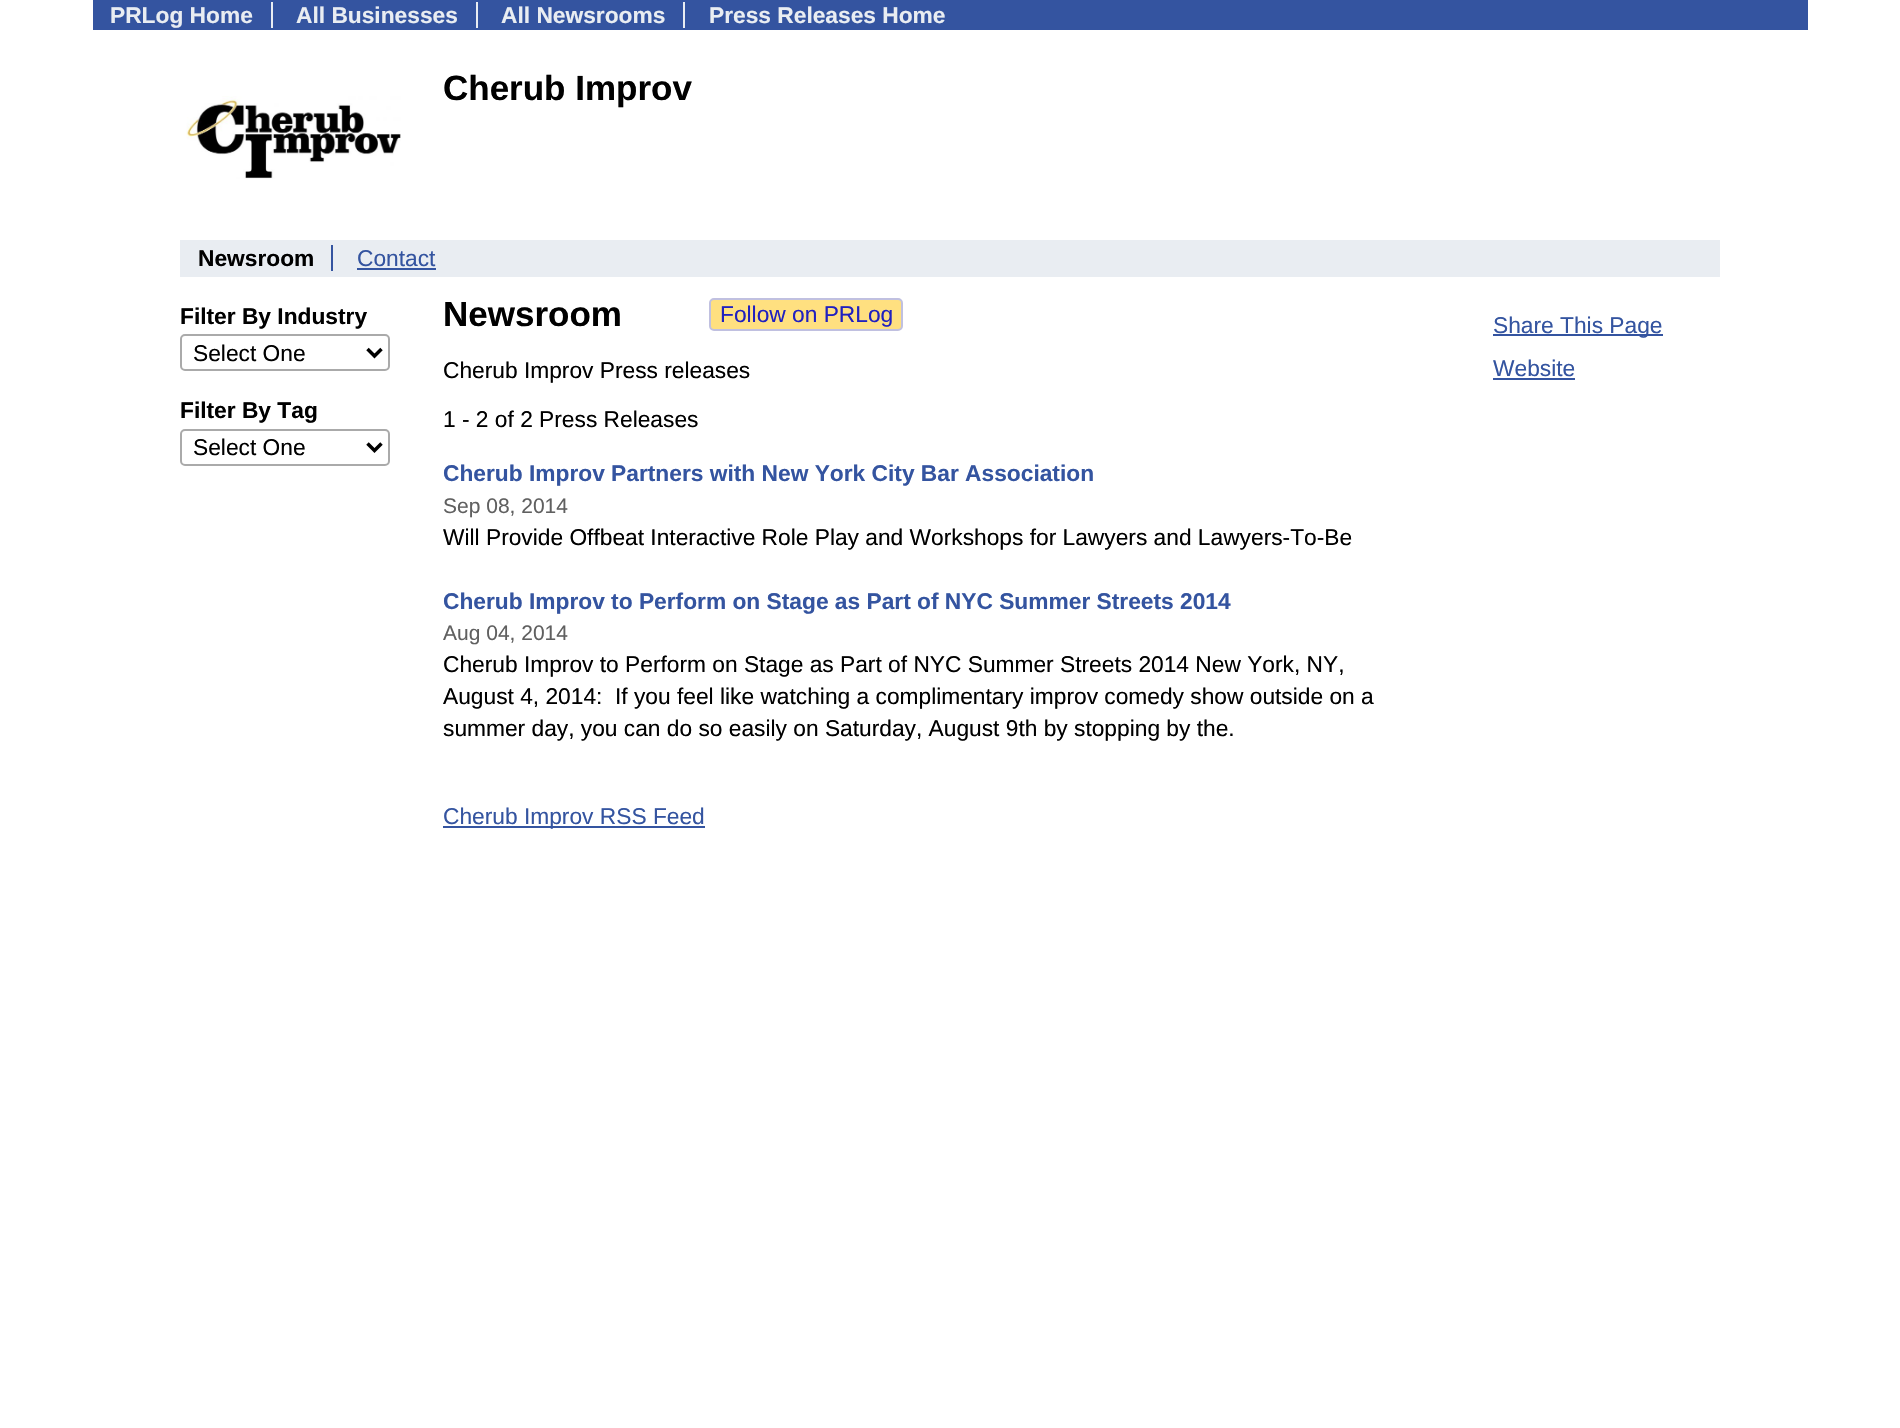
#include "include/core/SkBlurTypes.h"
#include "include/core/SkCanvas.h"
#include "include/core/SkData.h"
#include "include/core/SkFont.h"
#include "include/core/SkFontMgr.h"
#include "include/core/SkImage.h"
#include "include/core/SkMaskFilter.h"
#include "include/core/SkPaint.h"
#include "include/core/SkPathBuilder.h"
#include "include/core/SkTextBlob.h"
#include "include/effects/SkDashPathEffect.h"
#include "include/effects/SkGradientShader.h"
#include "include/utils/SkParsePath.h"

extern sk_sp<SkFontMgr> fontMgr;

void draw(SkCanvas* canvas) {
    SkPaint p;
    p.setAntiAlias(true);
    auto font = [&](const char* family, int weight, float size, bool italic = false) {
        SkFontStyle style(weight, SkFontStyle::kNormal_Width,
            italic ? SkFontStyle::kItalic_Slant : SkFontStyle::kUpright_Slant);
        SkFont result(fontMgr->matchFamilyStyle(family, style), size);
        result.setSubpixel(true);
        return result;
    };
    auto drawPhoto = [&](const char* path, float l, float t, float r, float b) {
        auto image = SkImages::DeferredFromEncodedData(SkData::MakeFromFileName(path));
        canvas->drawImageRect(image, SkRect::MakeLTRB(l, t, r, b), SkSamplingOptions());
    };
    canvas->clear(0xFFFFFFFF);
    p.setColor(0xFF3454A0);
    canvas->drawRect(SkRect::MakeLTRB(93, 0, 1808, 30), p);
    p.setColor(0xFFE9EDF2);
    canvas->drawRect(SkRect::MakeLTRB(271, 2, 273, 28), p);
    auto font1 = font("Liberation Sans", 700, 22.75f);
    canvas->drawString("PRLog Home", 110, 23, font1, p);
    canvas->drawRect(SkRect::MakeLTRB(476, 2, 478, 28), p);
    canvas->drawString("All Businesses", 296, 23, font1, p);
    canvas->drawRect(SkRect::MakeLTRB(683, 2, 685, 28), p);
    canvas->drawString("All Newsrooms", 501, 23, font1, p);
    canvas->drawString("Press Releases Home", 709, 23, font1, p);
    auto font2 = font("Liberation Sans", 700, 35);
    p.setColor(0xFF000000);
    canvas->drawString("Cherub Improv", 443, 100, font2, p);
    drawPhoto("media/1.png", 186, 96, 401, 179);
    p.setColor(0xFFE9EDF2);
    canvas->drawRect(SkRect::MakeLTRB(180, 240, 1720, 277), p);
    p.setColor(0xFF3454A0);
    canvas->drawRect(SkRect::MakeLTRB(331, 245, 333, 271), p);
    p.setColor(0xFF000000);
    canvas->drawString("Newsroom", 198, 266, font1, p);
    auto font3 = font("Liberation Sans", 400, 22.75f);
    p.setColor(0xFF3454A0);
    canvas->drawString("Contact", 357, 266, font3, p);
    canvas->drawRect(SkRect::MakeLTRB(357, 268, 436, 270), p);
    p.setColor(0xFF000000);
    canvas->drawString("Filter By Industry", 180, 324, font1, p);
    p.setStyle(SkPaint::kStroke_Style);
    p.setStrokeWidth(2);
    p.setColor(0xFFAAAAAA);
    canvas->drawRoundRect(SkRect::MakeLTRB(181, 335, 389, 370), 4, 4, p);
    p.setStrokeWidth(3.5f);
    p.setColor(0xFF000000);
    canvas->drawPath(SkPathBuilder().moveTo(367.5f, 349).lineTo(374.5f, 356).lineTo(381.5f, 349).detach(), p);
    p.setStyle(SkPaint::kFill_Style);
    canvas->drawString("Select One", 193, 361, font3, p);
    canvas->drawString("Filter By Tag", 180, 418, font1, p);
    p.setStyle(SkPaint::kStroke_Style);
    p.setStrokeWidth(2);
    p.setColor(0xFFAAAAAA);
    canvas->drawRoundRect(SkRect::MakeLTRB(181, 430, 389, 465), 4, 4, p);
    p.setStrokeWidth(3.5f);
    p.setColor(0xFF000000);
    canvas->drawPath(SkPathBuilder().moveTo(367.5f, 443.5f).lineTo(374.5f, 450.5f).lineTo(381.5f, 443.5f).detach(), p);
    p.setStyle(SkPaint::kFill_Style);
    canvas->drawString("Select One", 193, 455, font3, p);
    canvas->drawString("Newsroom", 443, 326, font2, p);
    p.setColor(0xFFFFE080);
    canvas->drawRoundRect(SkRect::MakeLTRB(710, 299, 902, 330), 4, 4, p);
    p.setStyle(SkPaint::kStroke_Style);
    p.setStrokeWidth(2);
    p.setColor(0xFFC0C0E0);
    canvas->drawRoundRect(SkRect::MakeLTRB(710, 299, 902, 330), 4, 4, p);
    p.setStyle(SkPaint::kFill_Style);
    p.setColor(0xFF2020C0);
    canvas->drawString("Follow on PRLog", 720, 322, font3, p);
    p.setColor(0xFF000000);
    canvas->drawString("Cherub Improv Press releases", 443, 378, font3, p);
    canvas->drawString("1 - 2 of 2 Press Releases", 443, 427, font3, p);
    p.setColor(0xFF3454A0);
    canvas->drawString("Cherub Improv Partners with New York City Bar Association", 443, 481, font1, p);
    auto font4 = font("Liberation Sans", 400, 21);
    p.setColor(0xFF606060);
    canvas->drawString("Sep 08, 2014", 443, 513, font4, p);
    p.setColor(0xFF000000);
    canvas->drawString("Will Provide Offbeat Interactive Role Play and Workshops for Lawyers and Lawyers-To-Be", 443, 545, font3, p);
    p.setColor(0xFF3454A0);
    canvas->drawString("Cherub Improv to Perform on Stage as Part of NYC Summer Streets 2014", 443, 609, font1, p);
    p.setColor(0xFF606060);
    canvas->drawString("Aug 04, 2014", 443, 640, font4, p);
    p.setColor(0xFF000000);
    {
        const struct { const char* s; float x, y; } items[] = {
            {"Cherub Improv to Perform on Stage as Part of NYC Summer Streets 2014 New York, NY,", 443, 672},
            {"August 4, 2014:  If you feel like watching a complimentary improv comedy show outside on a", 443, 704},
            {"summer day, you can do so easily on Saturday, August 9th by stopping by the.", 443, 736},
        };
        for (auto [s, x, y] : items) {
            canvas->drawString(s, x, y, font3, p);
        }
    }
    p.setColor(0xFF3454A0);
    canvas->drawRect(SkRect::MakeLTRB(443, 826, 705, 828), p);
    canvas->drawString("Cherub Improv RSS Feed", 443, 824, font3, p);
    canvas->drawRect(SkRect::MakeLTRB(1493, 334, 1663, 336), p);
    canvas->drawString("Share This Page", 1493, 333, font3, p);
    canvas->drawString("Website", 1493, 376, font3, p);
    canvas->drawRect(SkRect::MakeLTRB(1493, 378, 1575, 380), p);
}
